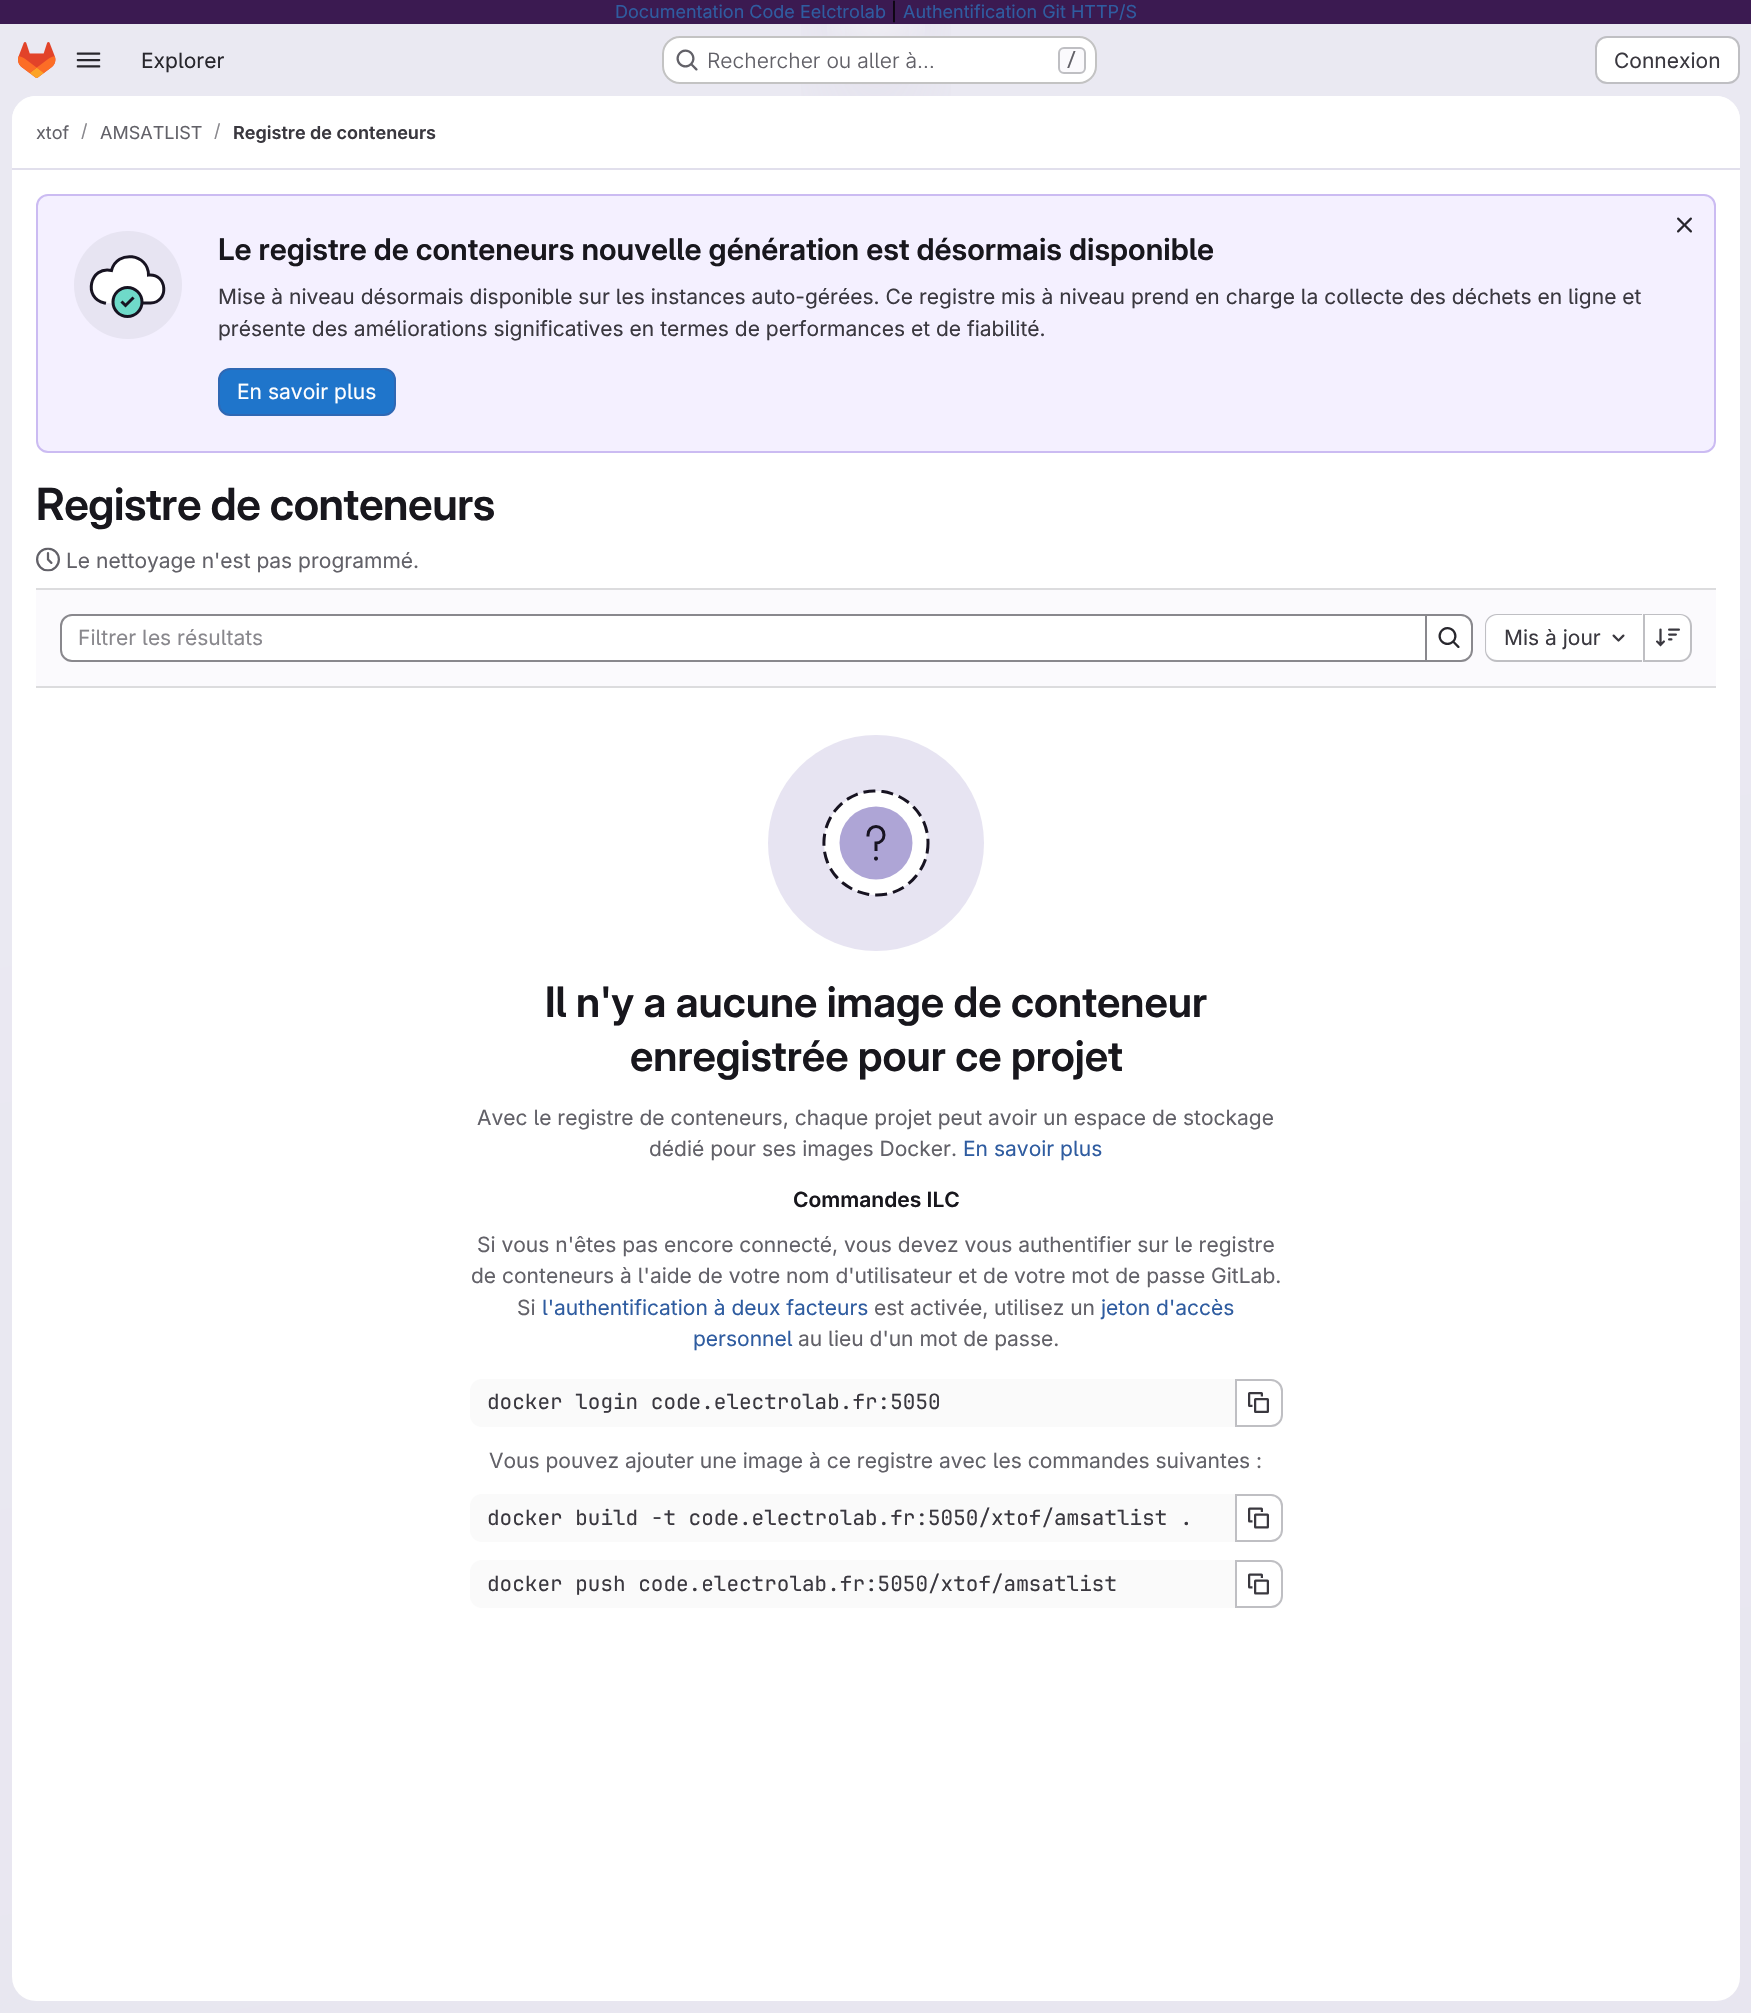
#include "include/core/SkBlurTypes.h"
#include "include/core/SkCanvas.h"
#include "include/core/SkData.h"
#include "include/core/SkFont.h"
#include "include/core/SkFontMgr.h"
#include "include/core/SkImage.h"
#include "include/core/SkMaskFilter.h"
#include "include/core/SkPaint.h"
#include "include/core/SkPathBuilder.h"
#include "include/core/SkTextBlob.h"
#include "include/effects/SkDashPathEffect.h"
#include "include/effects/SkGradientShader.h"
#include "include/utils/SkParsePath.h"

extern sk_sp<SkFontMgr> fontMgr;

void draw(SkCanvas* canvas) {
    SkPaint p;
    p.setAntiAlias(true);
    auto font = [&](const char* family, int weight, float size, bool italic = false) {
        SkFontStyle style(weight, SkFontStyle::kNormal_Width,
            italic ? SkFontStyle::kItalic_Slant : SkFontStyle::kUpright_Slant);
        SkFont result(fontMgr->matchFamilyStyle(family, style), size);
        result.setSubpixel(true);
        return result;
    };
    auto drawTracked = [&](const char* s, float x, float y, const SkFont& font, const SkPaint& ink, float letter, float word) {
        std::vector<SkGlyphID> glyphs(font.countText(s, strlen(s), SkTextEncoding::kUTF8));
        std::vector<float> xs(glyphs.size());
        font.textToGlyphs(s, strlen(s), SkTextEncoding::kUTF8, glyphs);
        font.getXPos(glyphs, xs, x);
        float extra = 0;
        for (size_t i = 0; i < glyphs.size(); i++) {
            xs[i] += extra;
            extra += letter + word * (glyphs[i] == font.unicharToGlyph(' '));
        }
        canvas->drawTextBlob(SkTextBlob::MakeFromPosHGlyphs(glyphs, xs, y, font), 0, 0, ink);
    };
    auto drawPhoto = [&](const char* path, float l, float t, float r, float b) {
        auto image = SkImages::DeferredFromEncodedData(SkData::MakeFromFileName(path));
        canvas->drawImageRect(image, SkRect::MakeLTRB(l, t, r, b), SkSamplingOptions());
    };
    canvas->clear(0xFFFFFFFF);
    {
        const SkColor colors[] = {0xFFE8E6F0, 0xFFEAE9F2};
        const float stops[] = {0, 0.7f};
        const SkPoint ends[] = {{1075, 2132}, {677, -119}};
        p.setShader(SkGradientShader::MakeLinear(ends, colors, stops, 2, SkTileMode::kClamp));
        p.setAlpha(255);
    }
    canvas->drawRect(SkRect::MakeLTRB(0, 24, 1751, 2013), p);
    {
        const SkColor colors[] = {0xFFE4E2ED, 0x00E4E2ED};
        const float stops[] = {0, 0.12f};
        SkMatrix m = SkMatrix::Translate(876, 0).preScale(876, 2013);
        p.setShader(SkGradientShader::MakeRadial({0, 0}, 1, colors, stops, 2, SkTileMode::kClamp, 0, &m));
        p.setAlpha(255);
    }
    canvas->drawRect(SkRect::MakeLTRB(801, 24, 951, 96), p);
    {
        const SkColor colors[] = {0xFFE4E2EC, 0x00E4E2EC};
        const float stops[] = {0, 0.09f};
        SkMatrix m = SkMatrix::Translate(876, 0).preScale(876, 2013);
        p.setShader(SkGradientShader::MakeRadial({0, 0}, 1, colors, stops, 2, SkTileMode::kClamp, 0, &m));
        p.setAlpha(255);
    }
    canvas->drawRect(SkRect::MakeLTRB(845, 26, 909, 85), p);
    {
        const SkColor colors[] = {0x99FFFFFF, 0x00FFFFFF};
        const float stops[] = {0, 0.03f};
        p.setShader(SkGradientShader::MakeRadial({876, 0}, 2195, colors, stops, 2, SkTileMode::kClamp));
        p.setAlpha(255);
    }
    canvas->drawRect(SkRect::MakeLTRB(827, 24, 925, 36), p);
    p.setShader(nullptr);
    p.setColor(0xFF3B1A51);
    canvas->drawRect(SkRect::MakeLTRB(0, 0, 1751, 24), p);
    auto font1 = font("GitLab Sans", 400, 18);
    p.setColor(0xFF2F5CA0);
    canvas->drawString("Documentation Code Eelctrolab", 615, 18, font1, p);
    p.setColor(0xFF000000);
    canvas->drawString("|", 891, 18, font1, p);
    p.setColor(0xFF2F5CA0);
    canvas->drawString("Authentification Git HTTP/S", 903, 18, font1, p);
    drawPhoto("media/1.png", 18, 42, 56, 78);
    drawPhoto("media/2.png", 76, 52, 101, 68);
    auto font2 = font("GitLab Sans", 400, 21);
    p.setColor(0xFF28272D);
    canvas->drawString("Explorer", 141, 68, font2, p);
    p.setColor(0xFFFFFFFF);
    canvas->drawRoundRect(SkRect::MakeLTRB(662, 36, 1097, 84), 18, 18, p);
    p.setStyle(SkPaint::kStroke_Style);
    p.setStrokeWidth(2);
    p.setColor(0x3D050506);
    canvas->drawRoundRect(SkRect::MakeLTRB(663, 37, 1096, 83), 17, 17, p);
    drawPhoto("media/3.png", 676, 49, 698, 71);
    auto font3 = font("GitLab Sans", 300, 21);
    p.setStyle(SkPaint::kFill_Style);
    p.setColor(0xFF626168);
    canvas->drawString("Rechercher ou aller à…", 707, 68, font3, p);
    p.setColor(0xFFFBFAFD);
    canvas->drawRoundRect(SkRect::MakeLTRB(1059, 48, 1085, 73), 5, 5, p);
    p.setStyle(SkPaint::kStroke_Style);
    p.setColor(0xFFBFBFC3);
    canvas->drawRoundRect(SkRect::MakeLTRB(1059, 48, 1085, 73), 5, 5, p);
    auto font4 = font("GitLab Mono", 500, 18);
    p.setStyle(SkPaint::kFill_Style);
    p.setColor(0xFF626168);
    canvas->drawString("/", 1066, 66, font4, p);
    p.setColor(0xFFFFFFFF);
    canvas->drawRoundRect(SkRect::MakeLTRB(1596, 37, 1739, 83), 11, 11, p);
    p.setStyle(SkPaint::kStroke_Style);
    p.setColor(0xFFBFBFC3);
    canvas->drawRoundRect(SkRect::MakeLTRB(1596, 37, 1739, 83), 11, 11, p);
    p.setStyle(SkPaint::kFill_Style);
    p.setColor(0xFF3A383F);
    canvas->drawString("Connexion", 1614, 68, font2, p);
    p.setColor(0xFFFFFFFF);
    canvas->drawRoundRect(SkRect::MakeLTRB(12, 96, 1740, 2001), 24, 24, p);
    canvas->drawPath(SkPathBuilder().moveTo(36, 96).lineTo(1716, 96).cubicTo(1729.5f, 96, 1740, 106.5f, 1740, 120).lineTo(1740, 170).lineTo(12, 170).lineTo(12, 120).cubicTo(12, 106.5f, 22.5f, 96, 36, 96).close().detach(), p);
    p.setColor(0xFFE1DFEC);
    canvas->drawRect(SkRect::MakeLTRB(12, 168, 1740, 170), p);
    p.setColor(0xFF626168);
    canvas->drawString("xtof", 36, 139, font1, p);
    p.setColor(0xFF89888D);
    canvas->drawString("/", 81, 137, font1, p);
    p.setColor(0xFF626168);
    canvas->drawString("AMSATLIST", 100, 139, font1, p);
    p.setColor(0xFF89888D);
    canvas->drawString("/", 214, 137, font1, p);
    auto font5 = font("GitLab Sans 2", 600, 18);
    p.setColor(0xFF3A383F);
    canvas->drawString("Registre de conteneurs", 233, 139, font5, p);
    p.setColor(0xFFF4F0FF);
    canvas->drawRoundRect(SkRect::MakeLTRB(37, 195, 1715, 452), 11, 11, p);
    p.setStyle(SkPaint::kStroke_Style);
    p.setColor(0xFFCBBBF2);
    canvas->drawRoundRect(SkRect::MakeLTRB(37, 195, 1715, 452), 11, 11, p);
    drawPhoto("media/4.png", 1677, 217, 1692, 233);
    p.setStyle(SkPaint::kFill_Style);
    p.setColor(0xFFE7E4F2);
    canvas->drawCircle(128, 285, 54, p);
    p.setColor(0xFFFFFFFF);
    canvas->drawPath(SkPathBuilder().moveTo(148, 275).cubicTo(167, 273, 170, 302, 150, 303).lineTo(122, 303).cubicTo(115, 303, 107, 304, 101, 302).cubicTo(83, 294, 92, 266, 111, 270).cubicTo(117, 249, 148, 253, 148, 275).close().detach(), p);
    p.setStyle(SkPaint::kStroke_Style);
    p.setStrokeWidth(3);
    p.setStrokeCap(SkPaint::kSquare_Cap);
    p.setColor(0xFF171321);
    canvas->drawPath(SkPathBuilder().moveTo(116, 303).lineTo(150.5f, 303).cubicTo(169.5f, 302.5f, 167.5f, 273, 148.5f, 275).cubicTo(148.5f, 253.5f, 117, 249.5f, 111.5f, 270.5f).cubicTo(90, 265.5f, 82.5f, 298.5f, 104.5f, 303).detach(), p);
    p.setStyle(SkPaint::kFill_Style);
    p.setColor(0xFF6FDAC9);
    canvas->drawCircle(127.5f, 302, 14.5f, p);
    p.setStyle(SkPaint::kStroke_Style);
    p.setStrokeCap(SkPaint::kButt_Cap);
    p.setColor(0xFF171321);
    canvas->drawCircle(127.5f, 302, 14.5f, p);
    p.setStrokeCap(SkPaint::kSquare_Cap);
    canvas->drawPath(SkPathBuilder().moveTo(122.5f, 302.5f).lineTo(125.5f, 305.5f).lineTo(132.5f, 298.5f).detach(), p);
    auto font6 = font("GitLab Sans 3", 600, 29.8f);
    p.setStyle(SkPaint::kFill_Style);
    p.setColor(0xFF18171D);
    canvas->drawString("Le registre de conteneurs nouvelle génération est désormais disponible", 218, 260, font6, p);
    p.setColor(0xFF3A383F);
    canvas->drawString("Mise à niveau désormais disponible sur les instances auto-gérées. Ce registre mis à niveau prend en charge la collecte des déchets en ligne et", 218, 304, font2, p);
    canvas->drawString("présente des améliorations significatives en termes de performances et de fiabilité.", 218, 336, font2, p);
    p.setColor(0xFF1F75CB);
    canvas->drawRoundRect(SkRect::MakeLTRB(219, 369, 395, 415), 11, 11, p);
    p.setStyle(SkPaint::kStroke_Style);
    p.setStrokeWidth(2);
    p.setStrokeCap(SkPaint::kButt_Cap);
    p.setColor(0xFF2F68B4);
    canvas->drawRoundRect(SkRect::MakeLTRB(219, 369, 395, 415), 11, 11, p);
    p.setStyle(SkPaint::kFill_Style);
    p.setColor(0xFFFFFFFF);
    canvas->drawString("En savoir plus", 237, 399, font2, p);
    auto font7 = font("GitLab Sans", 600, 44.25f);
    p.setColor(0xFF18171D);
    drawTracked("Registre de conteneurs", 36, 520, font7, p, -0.4f, 0);
    drawPhoto("media/5.png", 36, 547, 60, 572);
    p.setColor(0xFF626168);
    canvas->drawString("Le nettoyage n'est pas programmé.", 66, 568, font2, p);
    {
        const struct { float l, t, r, b; SkColor color; } items[] = {
            {36, 590, 1716, 686, 0xFFFBFAFD},
            {36, 588, 1716, 590, 0xFFDCDCDE},
            {36, 686, 1716, 688, 0xFFDCDCDE},
        };
        for (auto [l, t, r, b, color] : items) {
            p.setColor(color);
            canvas->drawRect(SkRect::MakeLTRB(l, t, r, b), p);
        }
    }
    p.setColor(0xFFFFFFFF);
    canvas->drawPath(SkPathBuilder().moveTo(72, 615).lineTo(1426, 615).lineTo(1426, 661).lineTo(72, 661).cubicTo(66, 661, 61, 656, 61, 650).lineTo(61, 626).cubicTo(61, 620, 66, 615, 72, 615).close().detach(), p);
    p.setStyle(SkPaint::kStroke_Style);
    p.setColor(0xFF89888D);
    canvas->drawPath(SkPathBuilder().moveTo(72, 615).lineTo(1426, 615).lineTo(1426, 661).lineTo(72, 661).cubicTo(66, 661, 61, 656, 61, 650).lineTo(61, 626).cubicTo(61, 620, 66, 615, 72, 615).close().detach(), p);
    p.setStyle(SkPaint::kFill_Style);
    canvas->drawString("Filtrer les résultats", 78, 645, font2, p);
    p.setColor(0xFFFFFFFF);
    canvas->drawPath(SkPathBuilder().moveTo(1426, 615).lineTo(1461, 615).cubicTo(1467, 615, 1472, 620, 1472, 626).lineTo(1472, 650).cubicTo(1472, 656, 1467, 661, 1461, 661).lineTo(1426, 661).close().detach(), p);
    p.setStyle(SkPaint::kStroke_Style);
    p.setColor(0xFF89888D);
    canvas->drawPath(SkPathBuilder().moveTo(1426, 615).lineTo(1461, 615).cubicTo(1467, 615, 1472, 620, 1472, 626).lineTo(1472, 650).cubicTo(1472, 656, 1467, 661, 1461, 661).lineTo(1426, 661).close().detach(), p);
    drawPhoto("media/6.png", 1438, 627, 1460, 648);
    p.setStyle(SkPaint::kFill_Style);
    p.setColor(0xFFFFFFFF);
    canvas->drawPath(SkPathBuilder().moveTo(1498, 615).lineTo(1643, 615).lineTo(1643, 660).lineTo(1498, 660).cubicTo(1492, 660, 1487, 655, 1487, 649).lineTo(1487, 626).cubicTo(1487, 620, 1492, 615, 1498, 615).close().detach(), p);
    p.setColor(0xFFBFBFC3);
    canvas->drawPath(SkPathBuilder(SkPathFillType::kEvenOdd).moveTo(1497, 614).lineTo(1642, 614).lineTo(1642, 662).lineTo(1497, 662).cubicTo(1490, 662, 1485, 656, 1485, 650).lineTo(1485, 626).cubicTo(1485, 619, 1490, 614, 1497, 614).close().moveTo(1497, 615).lineTo(1642, 615).lineTo(1642, 660).lineTo(1497, 660).cubicTo(1491, 660, 1486, 655, 1486, 650).lineTo(1486, 626).cubicTo(1486, 620, 1491, 615, 1497, 615).close().detach(), p);
    p.setColor(0xFF3A383F);
    canvas->drawString("Mis à jour", 1504, 645, font2, p);
    drawPhoto("media/7.png", 1612, 634, 1625, 642);
    p.setColor(0xFFFFFFFF);
    canvas->drawPath(SkPathBuilder().moveTo(1644, 615).lineTo(1680, 615).cubicTo(1686, 615, 1691, 620, 1691, 626).lineTo(1691, 649).cubicTo(1691, 655, 1686, 660, 1680, 660).lineTo(1644, 660).close().detach(), p);
    p.setColor(0xFFBFBFC3);
    canvas->drawPath(SkPathBuilder(SkPathFillType::kEvenOdd).moveTo(1644, 614).lineTo(1680, 614).cubicTo(1687, 614, 1692, 619, 1692, 626).lineTo(1692, 650).cubicTo(1692, 656, 1687, 662, 1680, 662).lineTo(1644, 662).close().moveTo(1644, 615).lineTo(1680, 615).cubicTo(1686, 615, 1690, 620, 1690, 626).lineTo(1690, 650).cubicTo(1690, 655, 1686, 660, 1680, 660).lineTo(1644, 660).close().detach(), p);
    canvas->drawRect(SkRect::MakeLTRB(1643, 614, 1645, 662), p);
    drawPhoto("media/8.png", 1656, 628, 1680, 647);
    p.setColor(0xFFE7E4F2);
    canvas->drawCircle(876, 843, 108, p);
    p.setColor(0xFFFFFFFF);
    canvas->drawCircle(876, 843, 52, p);
    p.setColor(0xFFAEA5D6);
    canvas->drawCircle(876, 843, 36.5f, p);
    p.setStyle(SkPaint::kStroke_Style);
    p.setStrokeWidth(3);
    p.setStrokeCap(SkPaint::kSquare_Cap);
    p.setColor(0xFF171321);
    canvas->drawPath(SkPathBuilder().moveTo(876, 849.5f).lineTo(876, 843).cubicTo(880.5f, 843, 884, 839.5f, 884, 835).cubicTo(884, 830, 880.5f, 826.5f, 876, 826.5f).cubicTo(871.5f, 826.5f, 868, 830, 868, 835).detach(), p);
    p.setStrokeWidth(2.1f);
    p.setStrokeCap(SkPaint::kButt_Cap);
    canvas->drawCircle(876, 858.6f, 1, p);
    p.setStrokeWidth(3);
    p.setStrokeCap(SkPaint::kSquare_Cap);
    p.setPathEffect(SkDashPathEffect::Make({{9, 9}}, 0));
    canvas->drawPath(SkPathBuilder().moveTo(928, 843).cubicTo(928, 853.5f, 925, 863.5f, 919, 872).cubicTo(889.5f, 916, 821.5f, 892, 824, 840.5f).cubicTo(824.5f, 830, 828, 820.5f, 834, 812).cubicTo(863.5f, 772, 928, 793, 928, 843).close().detach(), p);
    p.setPathEffect(nullptr);
    auto font8 = font("GitLab Sans", 600, 42);
    p.setStyle(SkPaint::kFill_Style);
    p.setColor(0xFF18171D);
    canvas->drawString("Il n'y a aucune image de conteneur", 545, 1017, font8, p);
    canvas->drawString("enregistrée pour ce projet", 630, 1071, font8, p);
    p.setColor(0xFF626168);
    canvas->drawString("Avec le registre de conteneurs, chaque projet peut avoir un espace de stockage", 477, 1125, font2, p);
    canvas->drawString("dédié pour ses images Docker.", 649, 1156, font2, p);
    p.setColor(0xFF2F5CA0);
    canvas->drawString("En savoir plus", 963, 1156, font2, p);
    auto font9 = font("GitLab Sans 2", 600, 21);
    p.setColor(0xFF18171D);
    canvas->drawString("Commandes ILC", 793, 1207, font9, p);
    p.setColor(0xFF626168);
    {
        const struct { const char* s; float x, y; } items[] = {
            {"Si vous n'êtes pas encore connecté, vous devez vous authentifier sur le registre", 477, 1252},
            {"de conteneurs à l'aide de votre nom d'utilisateur et de votre mot de passe GitLab.", 471, 1283},
            {"Si", 517, 1315},
        };
        for (auto [s, x, y] : items) {
            canvas->drawString(s, x, y, font2, p);
        }
    }
    p.setColor(0xFF2F5CA0);
    canvas->drawString("l'authentification à deux facteurs", 542, 1315, font2, p);
    p.setColor(0xFF626168);
    canvas->drawString("est activée, utilisez un", 874, 1315, font2, p);
    p.setColor(0xFF2F5CA0);
    canvas->drawString("jeton d'accès", 1101, 1315, font2, p);
    canvas->drawString("personnel", 693, 1346, font2, p);
    p.setColor(0xFF626168);
    canvas->drawString("au lieu d'un mot de passe.", 798, 1346, font2, p);
    p.setColor(0xFFFAFAFA);
    canvas->drawPath(SkPathBuilder().moveTo(482, 1379).lineTo(1236, 1379).lineTo(1236, 1427).lineTo(482, 1427).cubicTo(475.5f, 1427, 470, 1421.5f, 470, 1415).lineTo(470, 1391).cubicTo(470, 1384.5f, 475.5f, 1379, 482, 1379).close().detach(), p);
    auto font10 = font("GitLab Mono", 400, 21);
    p.setColor(0xFF3A383F);
    canvas->drawString("docker login code.electrolab.fr:5050", 487, 1409, font10, p);
    p.setColor(0xFFFFFFFF);
    canvas->drawPath(SkPathBuilder().moveTo(1236, 1380).lineTo(1271, 1380).cubicTo(1277, 1380, 1282, 1385, 1282, 1391).lineTo(1282, 1415).cubicTo(1282, 1421, 1277, 1426, 1271, 1426).lineTo(1236, 1426).close().detach(), p);
    p.setStyle(SkPaint::kStroke_Style);
    p.setStrokeWidth(2);
    p.setStrokeCap(SkPaint::kButt_Cap);
    p.setColor(0xFFBFBFC3);
    canvas->drawPath(SkPathBuilder().moveTo(1236, 1380).lineTo(1271, 1380).cubicTo(1277, 1380, 1282, 1385, 1282, 1391).lineTo(1282, 1415).cubicTo(1282, 1421, 1277, 1426, 1271, 1426).lineTo(1236, 1426).close().detach(), p);
    drawPhoto("media/9.png", 1248, 1392, 1269, 1413);
    p.setStyle(SkPaint::kFill_Style);
    p.setColor(0xFF626168);
    canvas->drawString("Vous pouvez ajouter une image à ce registre avec les commandes suivantes :", 489, 1468, font2, p);
    p.setColor(0xFFFAFAFA);
    canvas->drawPath(SkPathBuilder().moveTo(482, 1494).lineTo(1236, 1494).lineTo(1236, 1542).lineTo(482, 1542).cubicTo(475.5f, 1542, 470, 1536.5f, 470, 1530).lineTo(470, 1506).cubicTo(470, 1499.5f, 475.5f, 1494, 482, 1494).close().detach(), p);
    p.setColor(0xFF3A383F);
    canvas->drawString("docker build -t code.electrolab.fr:5050/xtof/amsatlist .", 487, 1525, font10, p);
    p.setColor(0xFFFFFFFF);
    canvas->drawPath(SkPathBuilder().moveTo(1236, 1495).lineTo(1271, 1495).cubicTo(1277, 1495, 1282, 1500, 1282, 1506).lineTo(1282, 1530).cubicTo(1282, 1536, 1277, 1541, 1271, 1541).lineTo(1236, 1541).close().detach(), p);
    p.setStyle(SkPaint::kStroke_Style);
    p.setColor(0xFFBFBFC3);
    canvas->drawPath(SkPathBuilder().moveTo(1236, 1495).lineTo(1271, 1495).cubicTo(1277, 1495, 1282, 1500, 1282, 1506).lineTo(1282, 1530).cubicTo(1282, 1536, 1277, 1541, 1271, 1541).lineTo(1236, 1541).close().detach(), p);
    drawPhoto("media/10.png", 1248, 1507, 1269, 1529);
    p.setStyle(SkPaint::kFill_Style);
    p.setColor(0xFFFAFAFA);
    canvas->drawPath(SkPathBuilder().moveTo(482, 1560).lineTo(1236, 1560).lineTo(1236, 1608).lineTo(482, 1608).cubicTo(475.5f, 1608, 470, 1602.5f, 470, 1596).lineTo(470, 1572).cubicTo(470, 1565.5f, 475.5f, 1560, 482, 1560).close().detach(), p);
    p.setColor(0xFF3A383F);
    canvas->drawString("docker push code.electrolab.fr:5050/xtof/amsatlist", 487, 1591, font10, p);
    p.setColor(0xFFFFFFFF);
    canvas->drawPath(SkPathBuilder().moveTo(1236, 1561).lineTo(1271, 1561).cubicTo(1277, 1561, 1282, 1566, 1282, 1572).lineTo(1282, 1596).cubicTo(1282, 1602, 1277, 1607, 1271, 1607).lineTo(1236, 1607).close().detach(), p);
    p.setStyle(SkPaint::kStroke_Style);
    p.setColor(0xFFBFBFC3);
    canvas->drawPath(SkPathBuilder().moveTo(1236, 1561).lineTo(1271, 1561).cubicTo(1277, 1561, 1282, 1566, 1282, 1572).lineTo(1282, 1596).cubicTo(1282, 1602, 1277, 1607, 1271, 1607).lineTo(1236, 1607).close().detach(), p);
    drawPhoto("media/10.png", 1248, 1573, 1269, 1595);
}
